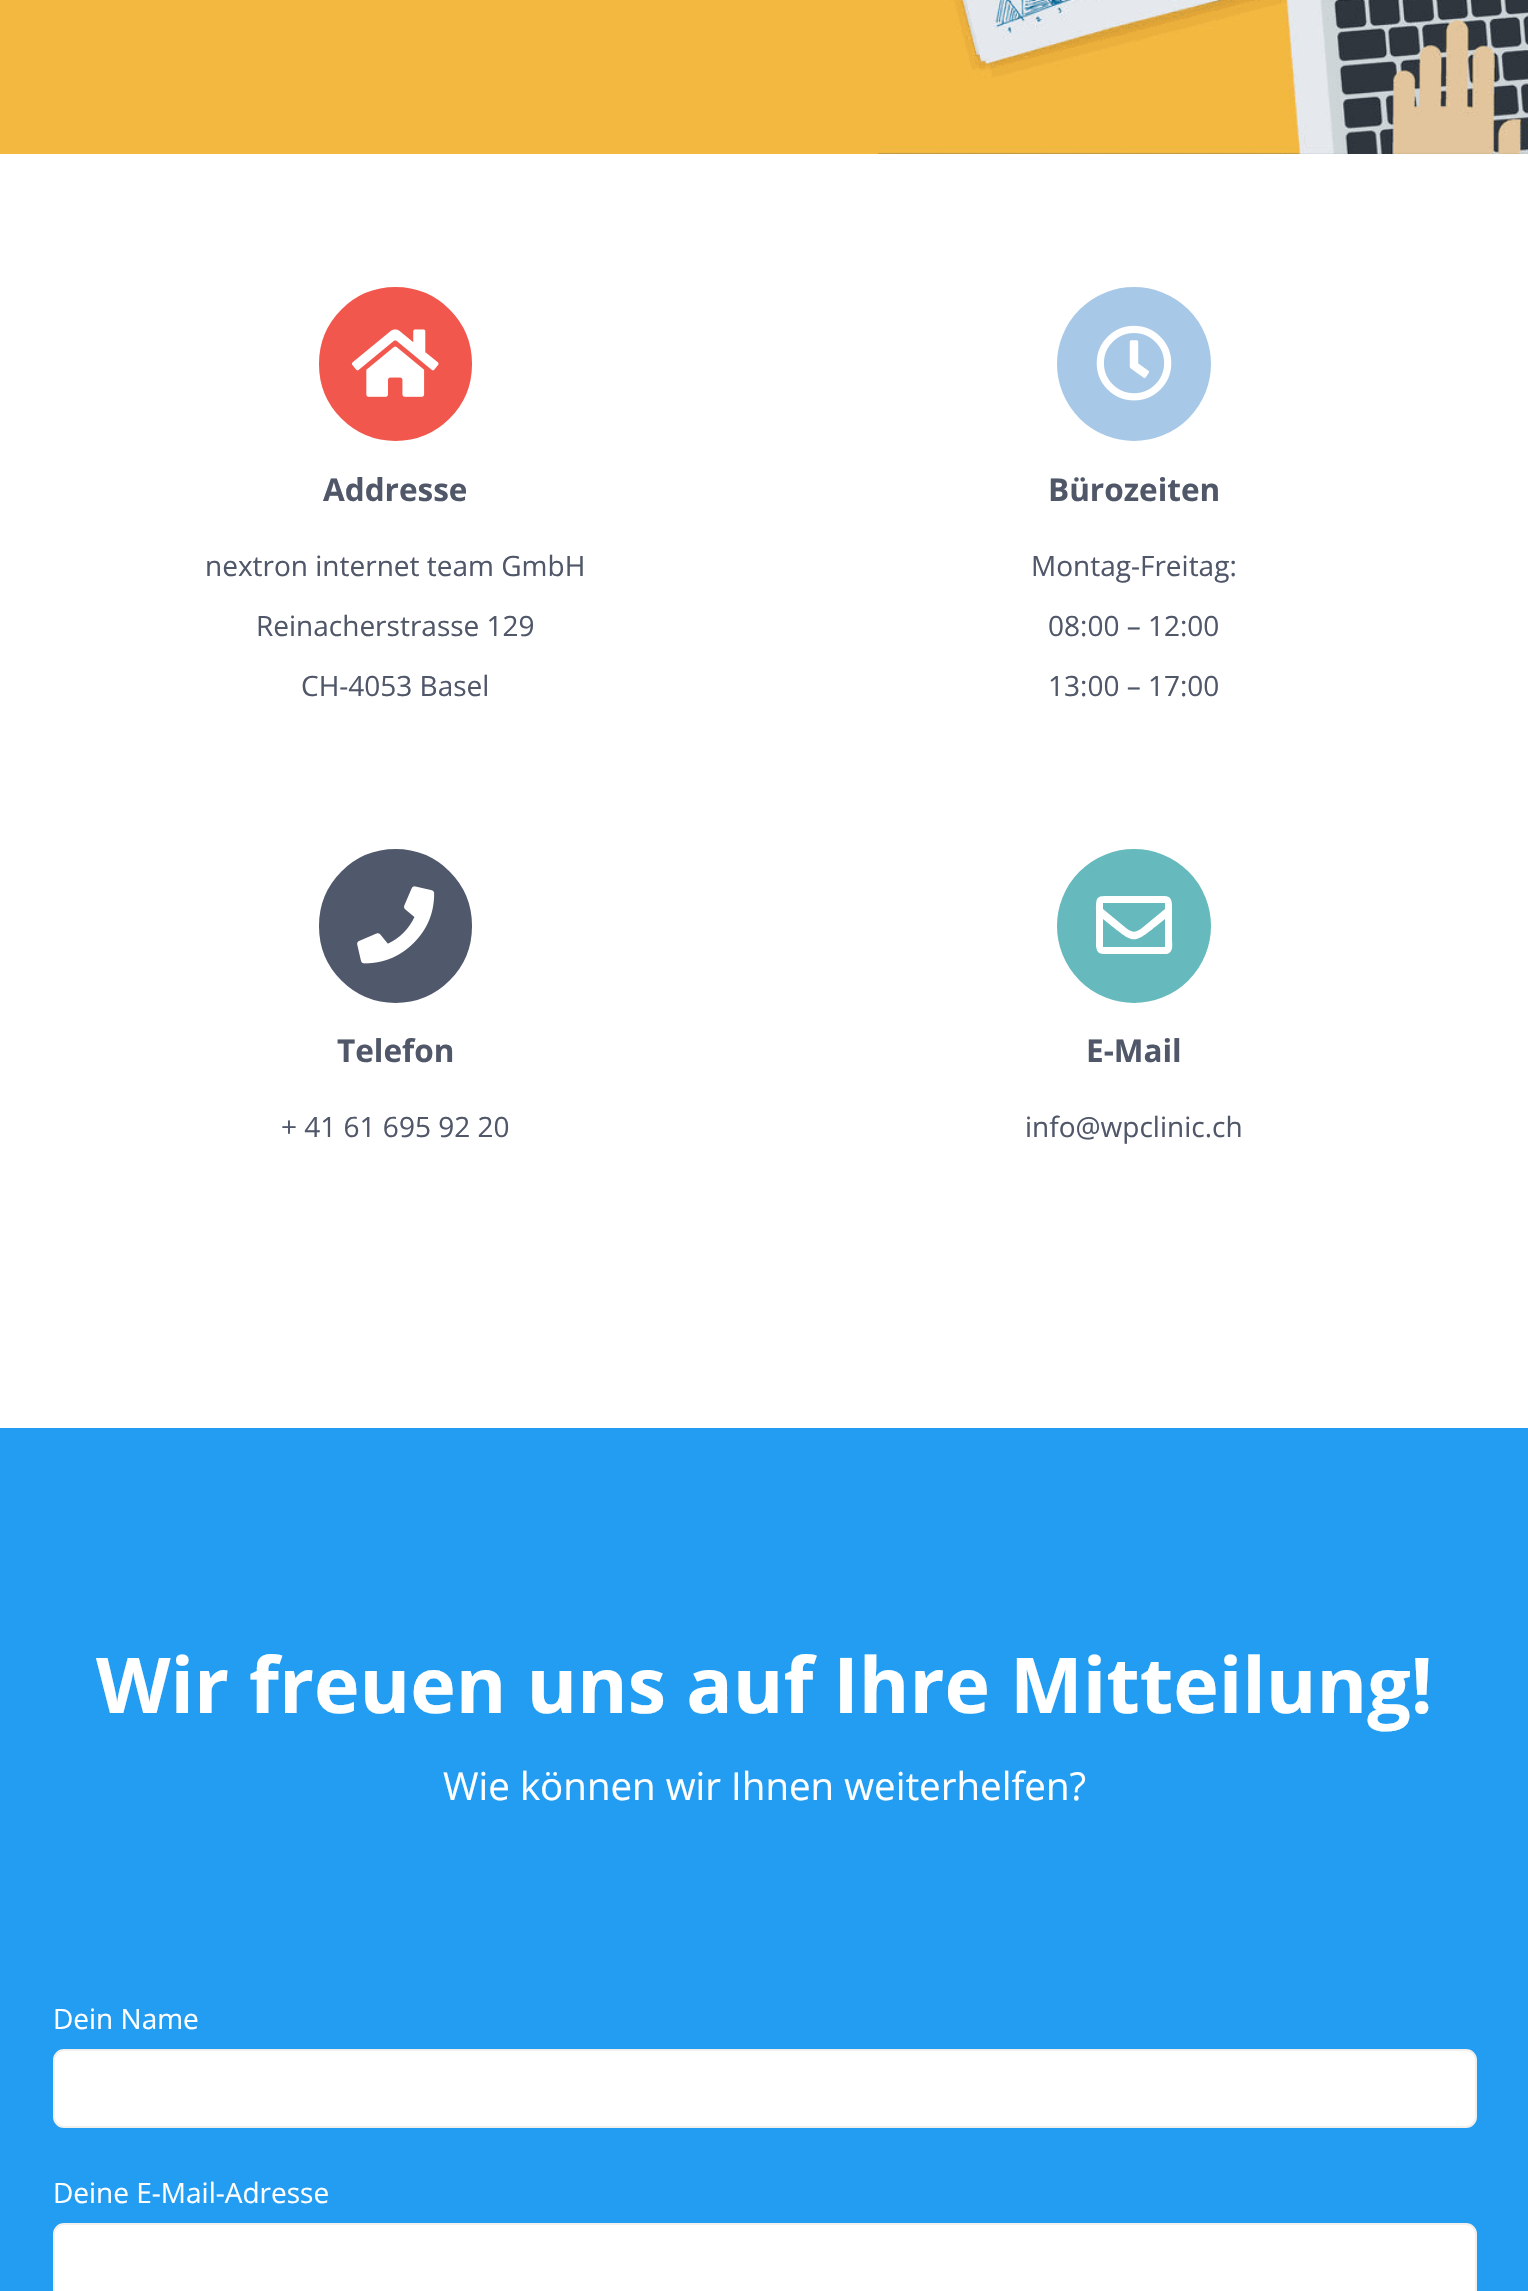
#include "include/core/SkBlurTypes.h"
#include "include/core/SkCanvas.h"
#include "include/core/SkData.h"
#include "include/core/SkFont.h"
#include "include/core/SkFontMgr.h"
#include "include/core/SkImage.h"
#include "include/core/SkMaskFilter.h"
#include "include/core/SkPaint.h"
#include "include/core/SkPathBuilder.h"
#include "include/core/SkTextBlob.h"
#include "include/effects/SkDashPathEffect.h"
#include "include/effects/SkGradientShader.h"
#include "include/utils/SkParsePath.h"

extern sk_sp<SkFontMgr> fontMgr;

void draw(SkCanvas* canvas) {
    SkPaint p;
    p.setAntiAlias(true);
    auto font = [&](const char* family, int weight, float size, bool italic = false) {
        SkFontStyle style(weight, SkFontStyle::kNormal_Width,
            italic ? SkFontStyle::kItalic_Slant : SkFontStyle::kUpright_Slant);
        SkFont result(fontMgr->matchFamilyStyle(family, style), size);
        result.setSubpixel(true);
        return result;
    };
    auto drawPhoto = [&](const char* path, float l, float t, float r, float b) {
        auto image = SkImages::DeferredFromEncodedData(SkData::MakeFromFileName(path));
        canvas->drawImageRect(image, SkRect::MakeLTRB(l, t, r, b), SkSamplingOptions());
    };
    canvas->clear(0xFFFFFFFF);
    drawPhoto("media/1.png", 0, 0, 1528, 154);
    p.setColor(0xFFF1574D);
    canvas->drawRoundRect(SkRect::MakeLTRB(318, 286, 473, 442), 77.5f, 77.5f, p);
    p.setStyle(SkPaint::kStroke_Style);
    p.setStrokeWidth(2);
    p.setColor(0xFFFFFFFF);
    canvas->drawRoundRect(SkRect::MakeLTRB(318, 286, 473, 442), 77.5f, 77.5f, p);
    drawPhoto("media/2.png", 351, 329, 439, 397);
    auto font1 = font("Open Sans", 700, 31.5f);
    p.setStyle(SkPaint::kFill_Style);
    p.setColor(0xFF505769);
    canvas->drawString("Addresse", 323, 501, font1, p);
    auto font2 = font("Open Sans", 400, 28);
    {
        const struct { const char* s; float x, y; } items[] = {
            {"nextron internet team GmbH", 205, 576},
            {"Reinacherstrasse 129", 256, 636},
            {"CH-4053 Basel", 301, 696},
        };
        for (auto [s, x, y] : items) {
            canvas->drawString(s, x, y, font2, p);
        }
    }
    p.setColor(0xFFA7C9E7);
    canvas->drawCircle(1134, 364, 78, p);
    p.setStyle(SkPaint::kStroke_Style);
    p.setColor(0xFFFFFFFF);
    canvas->drawCircle(1134, 364, 78, p);
    drawPhoto("media/3.png", 1096, 325, 1172, 401);
    p.setStyle(SkPaint::kFill_Style);
    p.setColor(0xFF505769);
    canvas->drawString("Bürozeiten", 1048, 501, font1, p);
    {
        const struct { const char* s; float x, y; } items[] = {
            {"Montag-Freitag:", 1031, 576},
            {"08:00 – 12:00", 1048, 636},
            {"13:00 – 17:00", 1048, 696},
        };
        for (auto [s, x, y] : items) {
            canvas->drawString(s, x, y, font2, p);
        }
    }
    p.setColor(0xFF50586B);
    canvas->drawRoundRect(SkRect::MakeLTRB(318, 848, 473, 1004), 77.5f, 77.5f, p);
    p.setStyle(SkPaint::kStroke_Style);
    p.setColor(0xFFFFFFFF);
    canvas->drawRoundRect(SkRect::MakeLTRB(318, 848, 473, 1004), 77.5f, 77.5f, p);
    drawPhoto("media/4.png", 357, 886, 435, 964);
    p.setStyle(SkPaint::kFill_Style);
    p.setColor(0xFF505769);
    canvas->drawString("Telefon", 337, 1062, font1, p);
    canvas->drawString("+ 41 61 695 92 20", 281, 1137, font2, p);
    p.setColor(0xFF66BABD);
    canvas->drawCircle(1134, 926, 78, p);
    p.setStyle(SkPaint::kStroke_Style);
    p.setColor(0xFFFFFFFF);
    canvas->drawCircle(1134, 926, 78, p);
    p.setStyle(SkPaint::kFill_Style);
    canvas->drawPath(SkPathBuilder().moveTo(1165, 896).cubicTo(1173, 896, 1172, 905, 1172, 910).lineTo(1172, 939).cubicTo(1172, 944, 1174, 952, 1167, 954).lineTo(1103, 954).cubicTo(1095, 954, 1096, 945, 1096, 939).lineTo(1096, 910).cubicTo(1096, 895, 1097, 896, 1113, 896).close().moveTo(1165, 903).lineTo(1103, 903).lineTo(1103, 909).lineTo(1126, 928).cubicTo(1133, 933, 1135, 933, 1142, 928).lineTo(1165, 909).close().moveTo(1103, 947).lineTo(1165, 947).lineTo(1165, 919).cubicTo(1131, 946, 1137, 946, 1103, 919).close().detach(), p);
    p.setColor(0xFF505769);
    canvas->drawString("E-Mail", 1086, 1062, font1, p);
    canvas->drawString("info@wpclinic.ch", 1025, 1137, font2, p);
    p.setColor(0xFF239DF2);
    canvas->drawRect(SkRect::MakeLTRB(0, 1428, 1528, 2291), p);
    auto font3 = font("Open Sans", 700, 77.1f);
    p.setColor(0xFFFFFFFF);
    canvas->drawString("Wir freuen uns auf Ihre Mitteilung!", 96, 1713, font3, p);
    auto font4 = font("Open Sans", 400, 38.5f);
    canvas->drawString("Wie können wir Ihnen weiterhelfen?", 443, 1800, font4, p);
    canvas->drawString("Dein Name", 53, 2029, font2, p);
    canvas->drawRoundRect(SkRect::MakeLTRB(54, 2050, 1476, 2127), 10, 10, p);
    p.setStyle(SkPaint::kStroke_Style);
    p.setColor(0xFFF1F0EC);
    canvas->drawRoundRect(SkRect::MakeLTRB(54, 2050, 1476, 2127), 10, 10, p);
    p.setStyle(SkPaint::kFill_Style);
    p.setColor(0xFFFFFFFF);
    canvas->drawString("Deine E-Mail-Adresse", 53, 2203, font2, p);
    canvas->drawRoundRect(SkRect::MakeLTRB(54, 2224, 1476, 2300), 10, 10, p);
    p.setStyle(SkPaint::kStroke_Style);
    p.setColor(0xFFF1F0EC);
    canvas->drawRoundRect(SkRect::MakeLTRB(54, 2224, 1476, 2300), 10, 10, p);
}
